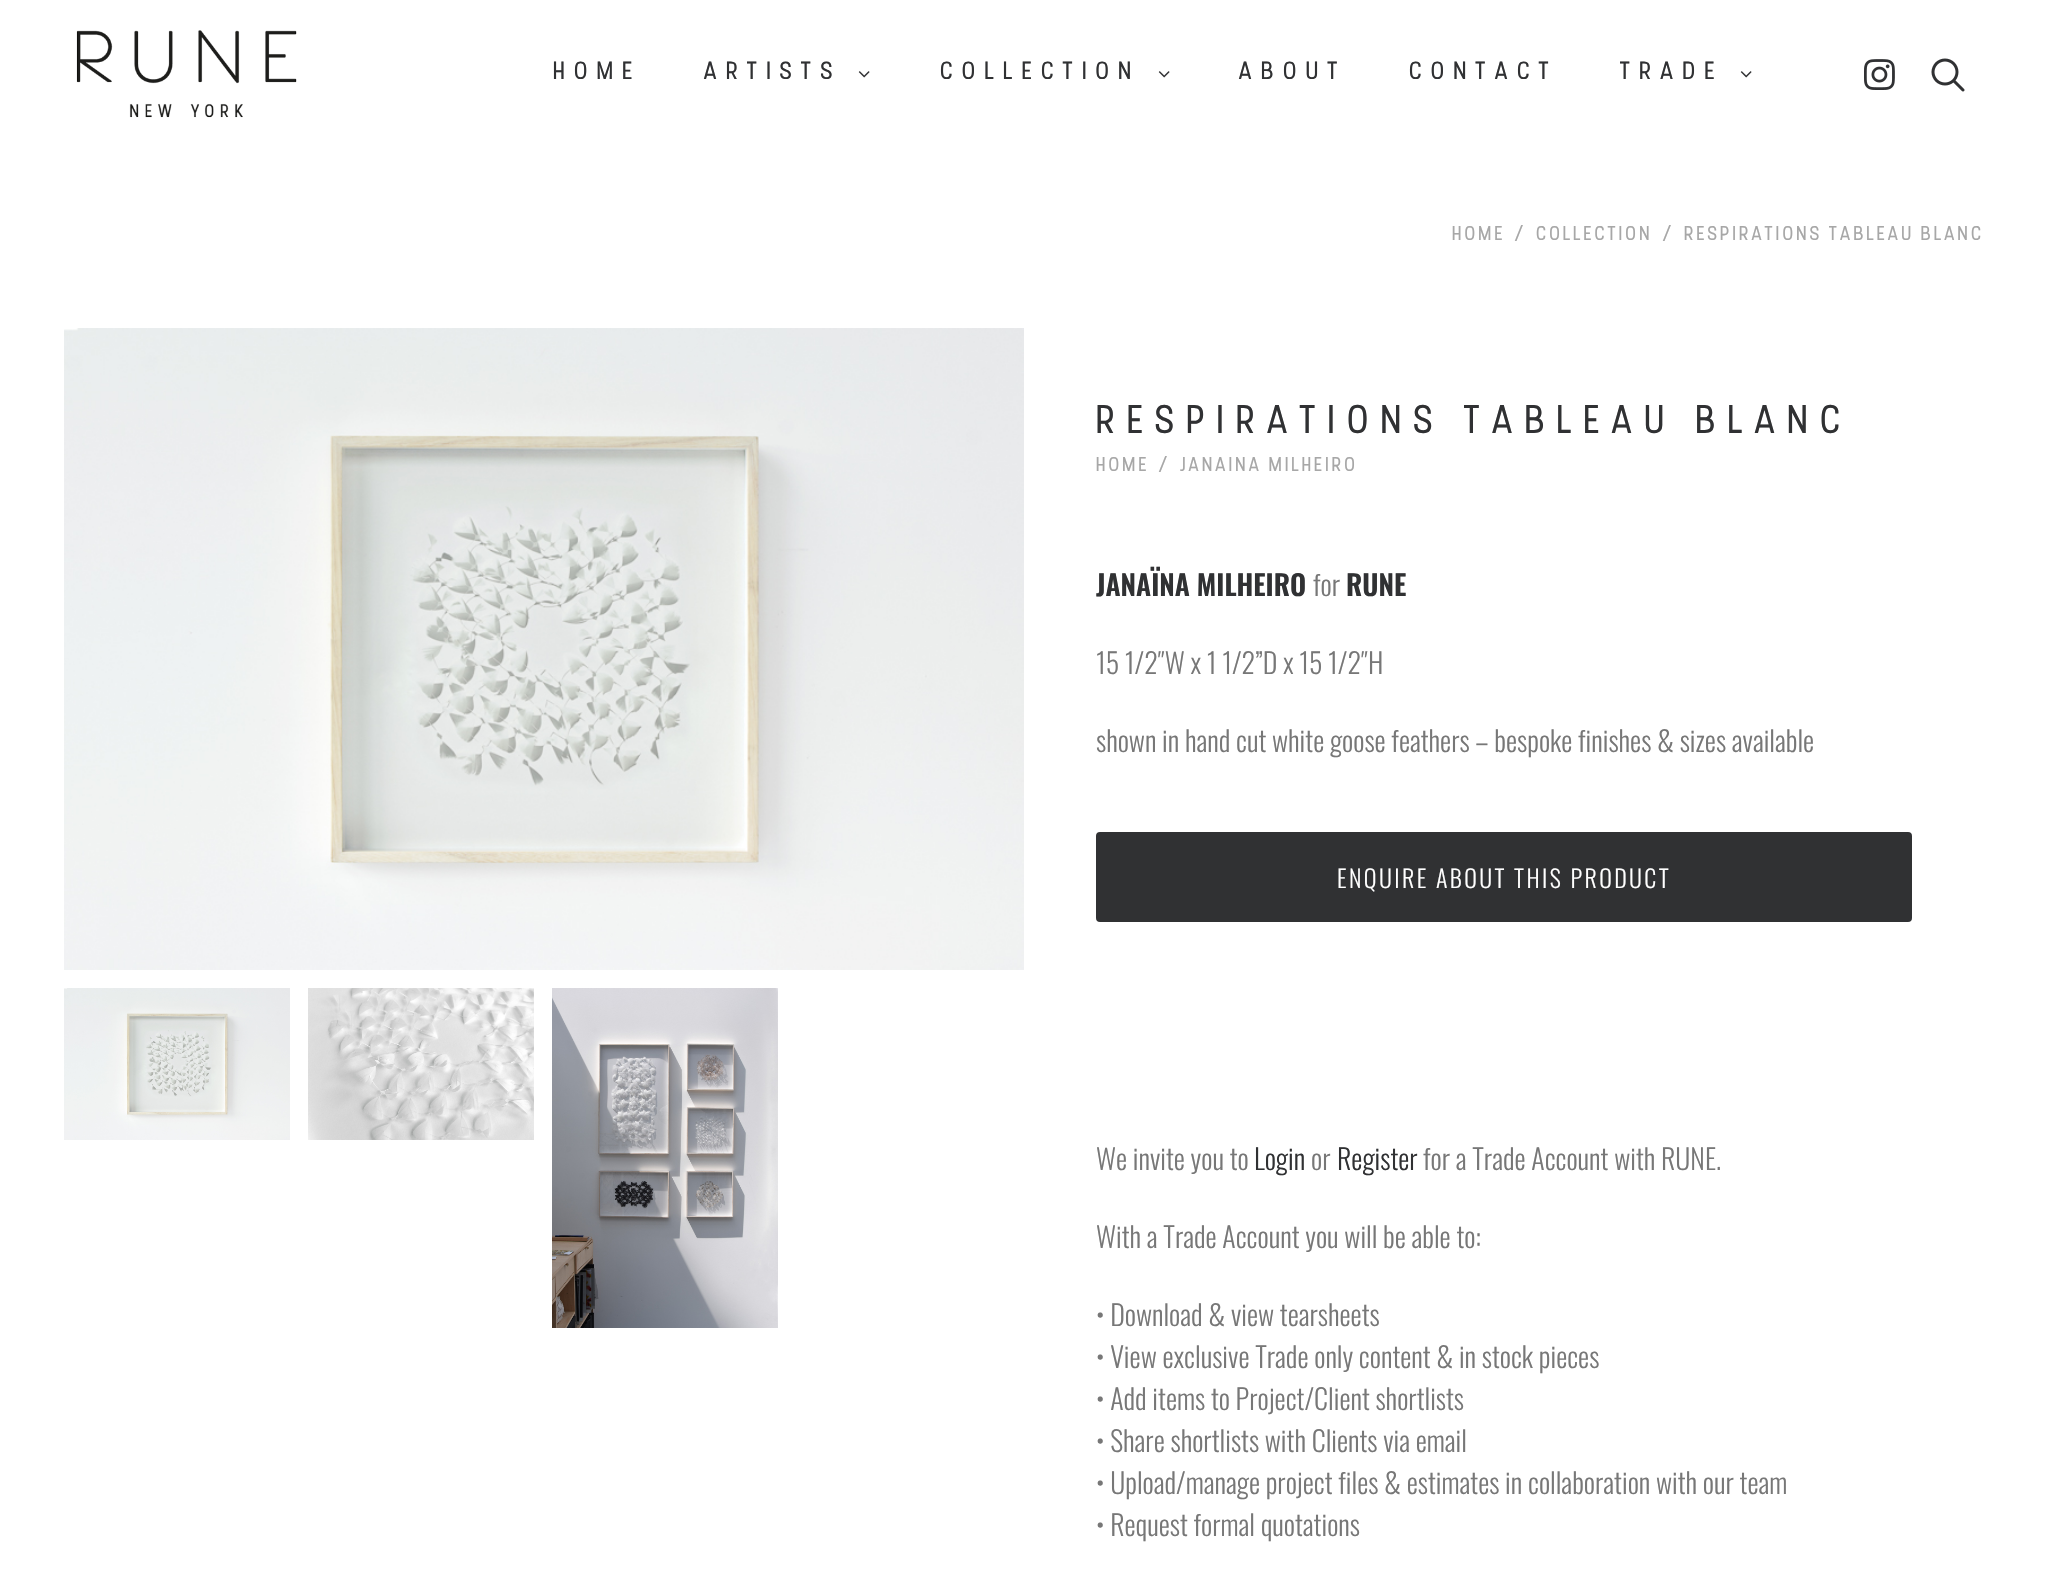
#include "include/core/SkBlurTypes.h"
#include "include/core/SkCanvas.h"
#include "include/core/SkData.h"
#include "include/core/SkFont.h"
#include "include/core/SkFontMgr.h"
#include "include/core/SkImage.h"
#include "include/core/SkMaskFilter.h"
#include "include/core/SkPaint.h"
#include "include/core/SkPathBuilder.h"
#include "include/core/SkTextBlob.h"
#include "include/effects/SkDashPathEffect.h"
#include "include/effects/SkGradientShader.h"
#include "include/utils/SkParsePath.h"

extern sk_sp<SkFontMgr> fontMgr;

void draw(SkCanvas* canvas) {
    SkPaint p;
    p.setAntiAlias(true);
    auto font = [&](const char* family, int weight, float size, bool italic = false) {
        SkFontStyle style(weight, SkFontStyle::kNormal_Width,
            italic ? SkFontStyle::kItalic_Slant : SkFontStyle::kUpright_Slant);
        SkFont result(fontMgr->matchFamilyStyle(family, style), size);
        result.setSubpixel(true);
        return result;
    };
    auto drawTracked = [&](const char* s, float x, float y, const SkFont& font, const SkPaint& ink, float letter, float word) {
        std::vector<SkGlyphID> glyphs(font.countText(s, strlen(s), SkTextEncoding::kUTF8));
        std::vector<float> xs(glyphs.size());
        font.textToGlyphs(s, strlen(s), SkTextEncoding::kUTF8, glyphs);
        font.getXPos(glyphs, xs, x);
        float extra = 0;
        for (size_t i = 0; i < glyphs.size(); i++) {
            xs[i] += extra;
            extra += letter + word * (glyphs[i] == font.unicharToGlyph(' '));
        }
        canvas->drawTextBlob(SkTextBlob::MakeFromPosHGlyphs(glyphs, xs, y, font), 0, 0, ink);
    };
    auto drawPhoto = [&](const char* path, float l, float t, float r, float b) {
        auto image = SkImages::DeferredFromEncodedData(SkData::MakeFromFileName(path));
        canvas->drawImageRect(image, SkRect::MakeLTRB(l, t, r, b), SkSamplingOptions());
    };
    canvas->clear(0xFFFFFFFF);
    drawPhoto("media/1.png", 76, 30, 297, 118);
    auto font1 = font("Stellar", 700, 24);
    p.setColor(0xFF303133);
    drawTracked("HOME", 553, 79, font1, p, 8.5f, 0);
    drawTracked("ARTISTS", 704, 79, font1, p, 8.5f, 0);
    drawPhoto("media/2.png", 858, 71, 870, 78);
    drawTracked("COLLECTION", 940, 79, font1, p, 8.5f, 0);
    drawPhoto("media/2.png", 1158, 71, 1170, 78);
    {
        const struct { const char* s; float x, y; } items[] = {
            {"ABOUT", 1239, 79},
            {"CONTACT", 1409, 79},
            {"TRADE", 1620, 79},
        };
        for (auto [s, x, y] : items) {
            drawTracked(s, x, y, font1, p, 8.5f, 0);
        }
    }
    drawPhoto("media/2.png", 1740, 71, 1752, 78);
    drawPhoto("media/3.png", 1864, 59, 1895, 90);
    drawPhoto("media/4.png", 1931, 58, 1965, 92);
    auto font2 = font("Stellar", 400, 20);
    p.setColor(0xFFA7A7A7);
    {
        const struct { const char* s; float x, y; } items[] = {
            {"HOME", 1452, 240},
            {"/", 1515, 240},
            {"COLLECTION", 1536, 240},
            {"/", 1663, 240},
            {"RESPIRATIONS TABLEAU BLANC", 1684, 240},
        };
        for (auto [s, x, y] : items) {
            drawTracked(s, x, y, font2, p, 2, 0);
        }
    }
    drawPhoto("media/5.png", 64, 328, 1024, 970);
    drawPhoto("media/6.png", 64, 988, 290, 1140);
    drawPhoto("media/7.png", 308, 988, 534, 1140);
    drawPhoto("media/8.png", 552, 988, 778, 1328);
    auto font3 = font("Stellar", 400, 40);
    p.setColor(0xFF303133);
    drawTracked("RESPIRATIONS TABLEAU BLANC", 1096, 433, font3, p, 10, 0);
    p.setColor(0xFFA7A7A7);
    {
        const struct { const char* s; float x, y; } items[] = {
            {"HOME", 1096, 471},
            {"/", 1159, 471},
            {"JANAINA MILHEIRO", 1180, 471},
        };
        for (auto [s, x, y] : items) {
            drawTracked(s, x, y, font2, p, 2, 0);
        }
    }
    auto font4 = font("Oswald", 600, 28);
    p.setColor(0xFF303133);
    canvas->drawString("JANAÏNA MILHEIRO", 1096, 596, font4, p);
    auto font5 = font("Oswald", 300, 28);
    p.setColor(0xFF777777);
    canvas->drawString("for", 1313, 596, font5, p);
    p.setColor(0xFF303133);
    canvas->drawString("RUNE", 1346, 596, font4, p);
    p.setColor(0xFF777777);
    canvas->drawString("15 1/2″W x 1 1/2”D x 15 1/2″H", 1096, 674, font5, p);
    canvas->drawString("shown in hand cut white goose feathers – bespoke finishes & sizes available", 1096, 752, font5, p);
    p.setColor(0xFF303133);
    canvas->drawRoundRect(SkRect::MakeLTRB(1097, 833, 1911, 921), 3, 3, p);
    p.setStyle(SkPaint::kStroke_Style);
    p.setStrokeWidth(2);
    canvas->drawRoundRect(SkRect::MakeLTRB(1097, 833, 1911, 921), 3, 3, p);
    auto font6 = font("Oswald", 300, 24);
    p.setStyle(SkPaint::kFill_Style);
    p.setColor(0xFFFFFFFF);
    drawTracked("ENQUIRE ABOUT THIS PRODUCT", 1337, 888, font6, p, 2.4f, 0);
    p.setColor(0xFF777777);
    canvas->drawString("We invite you to", 1096, 1170, font5, p);
    p.setColor(0xFF303133);
    canvas->drawString("Login", 1254, 1170, font5, p);
    p.setColor(0xFF777777);
    canvas->drawString("or", 1311, 1170, font5, p);
    p.setColor(0xFF303133);
    canvas->drawString("Register", 1337, 1170, font5, p);
    p.setColor(0xFF777777);
    {
        const struct { const char* s; float x, y; } items[] = {
            {"for a Trade Account with RUNE.", 1423, 1170},
            {"With a Trade Account you will be able to:", 1096, 1248},
            {"• Download & view tearsheets", 1096, 1326},
            {"• View exclusive Trade only content & in stock pieces", 1096, 1368},
            {"• Add items to Project/Client shortlists", 1096, 1410},
            {"• Share shortlists with Clients via email", 1096, 1452},
            {"• Upload/manage project files & estimates in collaboration with our team", 1096, 1494},
            {"• Request formal quotations", 1096, 1536},
        };
        for (auto [s, x, y] : items) {
            canvas->drawString(s, x, y, font5, p);
        }
    }
}
